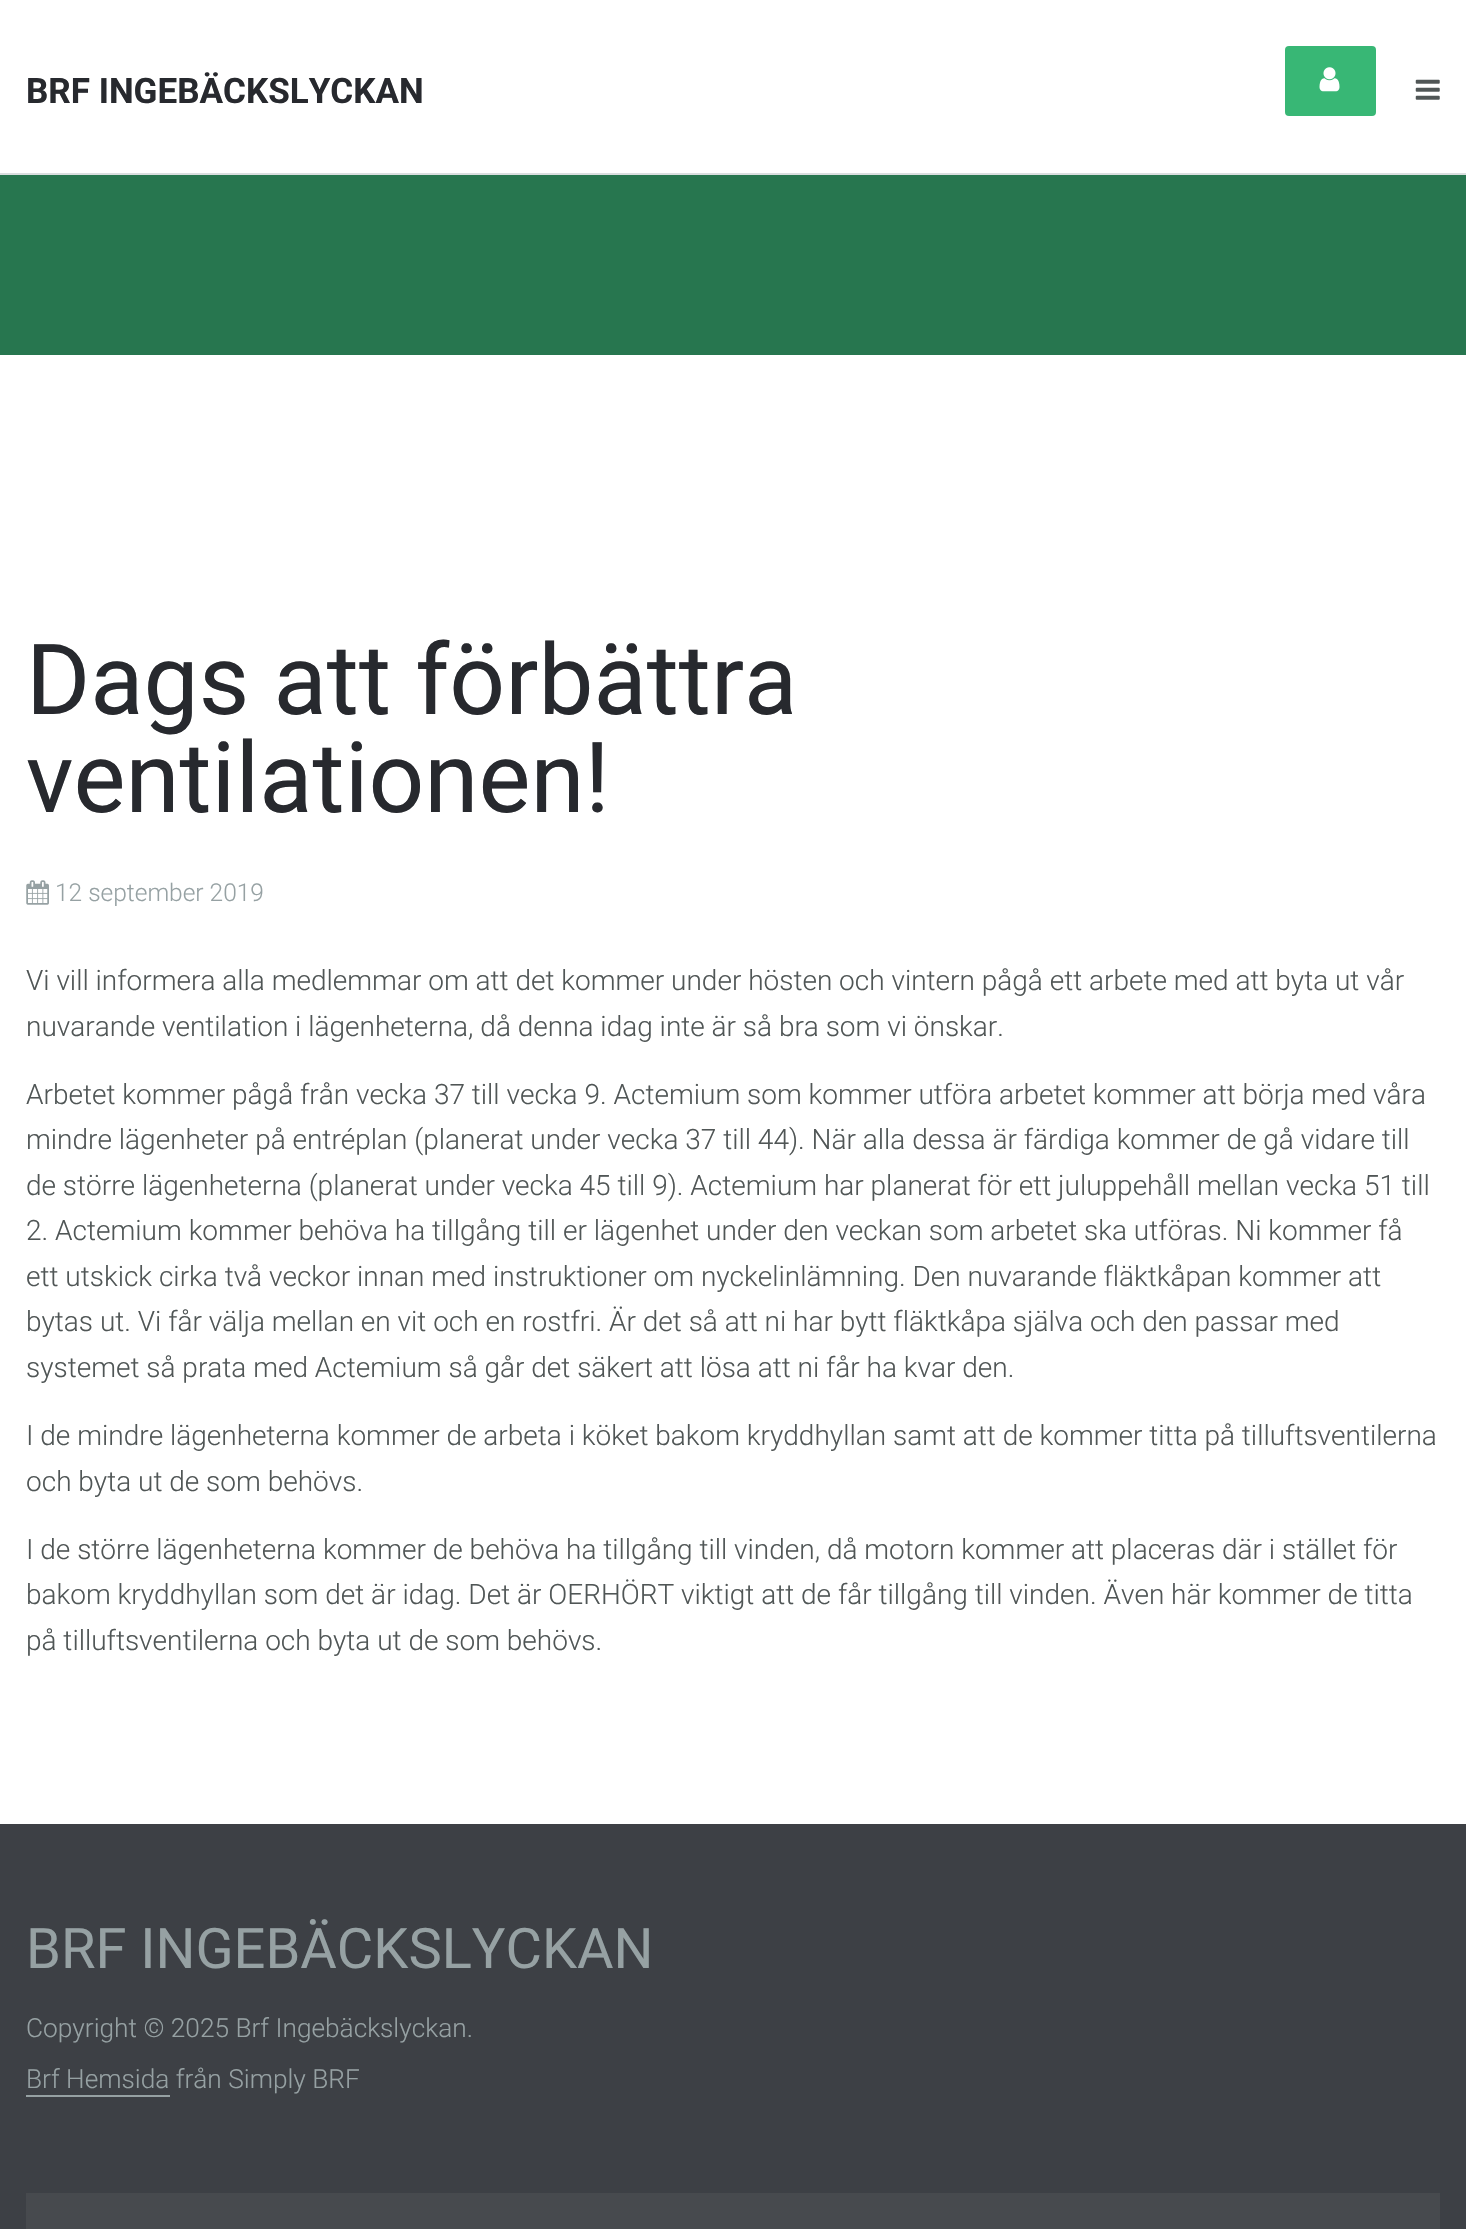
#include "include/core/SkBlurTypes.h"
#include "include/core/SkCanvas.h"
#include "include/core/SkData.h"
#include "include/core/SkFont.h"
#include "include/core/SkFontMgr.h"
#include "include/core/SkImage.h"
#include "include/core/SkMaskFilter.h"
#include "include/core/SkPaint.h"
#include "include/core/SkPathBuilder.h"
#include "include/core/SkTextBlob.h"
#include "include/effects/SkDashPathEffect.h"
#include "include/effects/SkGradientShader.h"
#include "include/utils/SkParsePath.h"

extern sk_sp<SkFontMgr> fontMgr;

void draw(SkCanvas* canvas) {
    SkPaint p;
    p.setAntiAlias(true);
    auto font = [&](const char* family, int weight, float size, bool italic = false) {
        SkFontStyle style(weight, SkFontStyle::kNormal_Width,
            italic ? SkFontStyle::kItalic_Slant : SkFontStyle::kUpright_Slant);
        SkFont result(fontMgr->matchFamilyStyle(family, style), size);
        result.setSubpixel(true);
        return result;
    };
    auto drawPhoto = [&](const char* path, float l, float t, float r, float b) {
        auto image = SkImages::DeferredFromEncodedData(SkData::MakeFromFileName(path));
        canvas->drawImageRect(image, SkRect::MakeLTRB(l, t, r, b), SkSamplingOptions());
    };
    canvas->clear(0xFFFFFFFF);
    p.setColor(0xFFDADEDF);
    canvas->drawRect(SkRect::MakeLTRB(0, 173, 1466, 175), p);
    auto font1 = font("Roboto", 700, 35);
    p.setColor(0xFF27292E);
    canvas->drawString("BRF INGEBÄCKSLYCKAN", 26, 103, font1, p);
    p.setColor(0xFF38B775);
    canvas->drawRoundRect(SkRect::MakeLTRB(1285, 46, 1376, 116), 4, 4, p);
    drawPhoto("media/1.png", 1319, 67, 1340, 92);
    drawPhoto("media/2.png", 1415, 79, 1440, 100);
    p.setColor(0xFF27764F);
    canvas->drawRect(SkRect::MakeLTRB(0, 175, 1466, 355), p);
    auto font2 = font("Roboto", 400, 98);
    p.setColor(0xFF27292E);
    canvas->drawString("Dags att förbättra", 26, 714, font2, p);
    canvas->drawString("ventilationen!", 26, 812, font2, p);
    drawPhoto("media/3.png", 26, 880, 49, 905);
    auto font3 = font("Roboto", 300, 24.5f);
    p.setColor(0xFF96A1A3);
    canvas->drawString("12 september 2019", 55, 901, font3, p);
    auto font4 = font("Roboto", 300, 28);
    p.setColor(0xFF505656);
    {
        const struct { const char* s; float x, y; } items[] = {
            {"Vi vill informera alla medlemmar om att det kommer under hösten och vintern pågå ett arbete med att byta ut vår", 26, 990},
            {"nuvarande ventilation i lägenheterna, då denna idag inte är så bra som vi önskar.", 26, 1036},
            {"Arbetet kommer pågå från vecka 37 till vecka 9. Actemium som kommer utföra arbetet kommer att börja med våra", 26, 1104},
            {"mindre lägenheter på entréplan (planerat under vecka 37 till 44). När alla dessa är färdiga kommer de gå vidare till", 26, 1149},
            {"de större lägenheterna (planerat under vecka 45 till 9). Actemium har planerat för ett juluppehåll mellan vecka 51 till", 26, 1195},
            {"2. Actemium kommer behöva ha tillgång till er lägenhet under den veckan som arbetet ska utföras. Ni kommer få", 26, 1240},
            {"ett utskick cirka två veckor innan med instruktioner om nyckelinlämning. Den nuvarande fläktkåpan kommer att", 26, 1286},
            {"bytas ut. Vi får välja mellan en vit och en rostfri. Är det så att ni har bytt fläktkåpa själva och den passar med", 26, 1331},
            {"systemet så prata med Actemium så går det säkert att lösa att ni får ha kvar den.", 26, 1377},
            {"I de mindre lägenheterna kommer de arbeta i köket bakom kryddhyllan samt att de kommer titta på tilluftsventilerna", 26, 1445},
            {"och byta ut de som behövs.", 26, 1491},
            {"I de större lägenheterna kommer de behöva ha tillgång till vinden, då motorn kommer att placeras där i stället för", 26, 1559},
            {"bakom kryddhyllan som det är idag. Det är OERHÖRT viktigt att de får tillgång till vinden. Även här kommer de titta", 26, 1604},
            {"på tilluftsventilerna och byta ut de som behövs.", 26, 1650},
        };
        for (auto [s, x, y] : items) {
            canvas->drawString(s, x, y, font4, p);
        }
    }
    p.setColor(0xFF3D4045);
    canvas->drawRect(SkRect::MakeLTRB(0, 1824, 1466, 2229), p);
    auto font5 = font("Roboto", 400, 56);
    p.setColor(0xFF96A1A3);
    canvas->drawString("BRF INGEBÄCKSLYCKAN", 26, 1968, font5, p);
    auto font6 = font("Roboto", 300, 26.25f);
    canvas->drawString("Copyright © 2025 Brf Ingebäckslyckan.", 26, 2037, font6, p);
    canvas->drawString("Brf Hemsida från Simply BRF", 26, 2088, font6, p);
    canvas->drawRect(SkRect::MakeLTRB(26, 2095, 170, 2097), p);
    p.setColor(0xFF474A4E);
    canvas->drawRect(SkRect::MakeLTRB(26, 2193, 1440, 2229), p);
}
